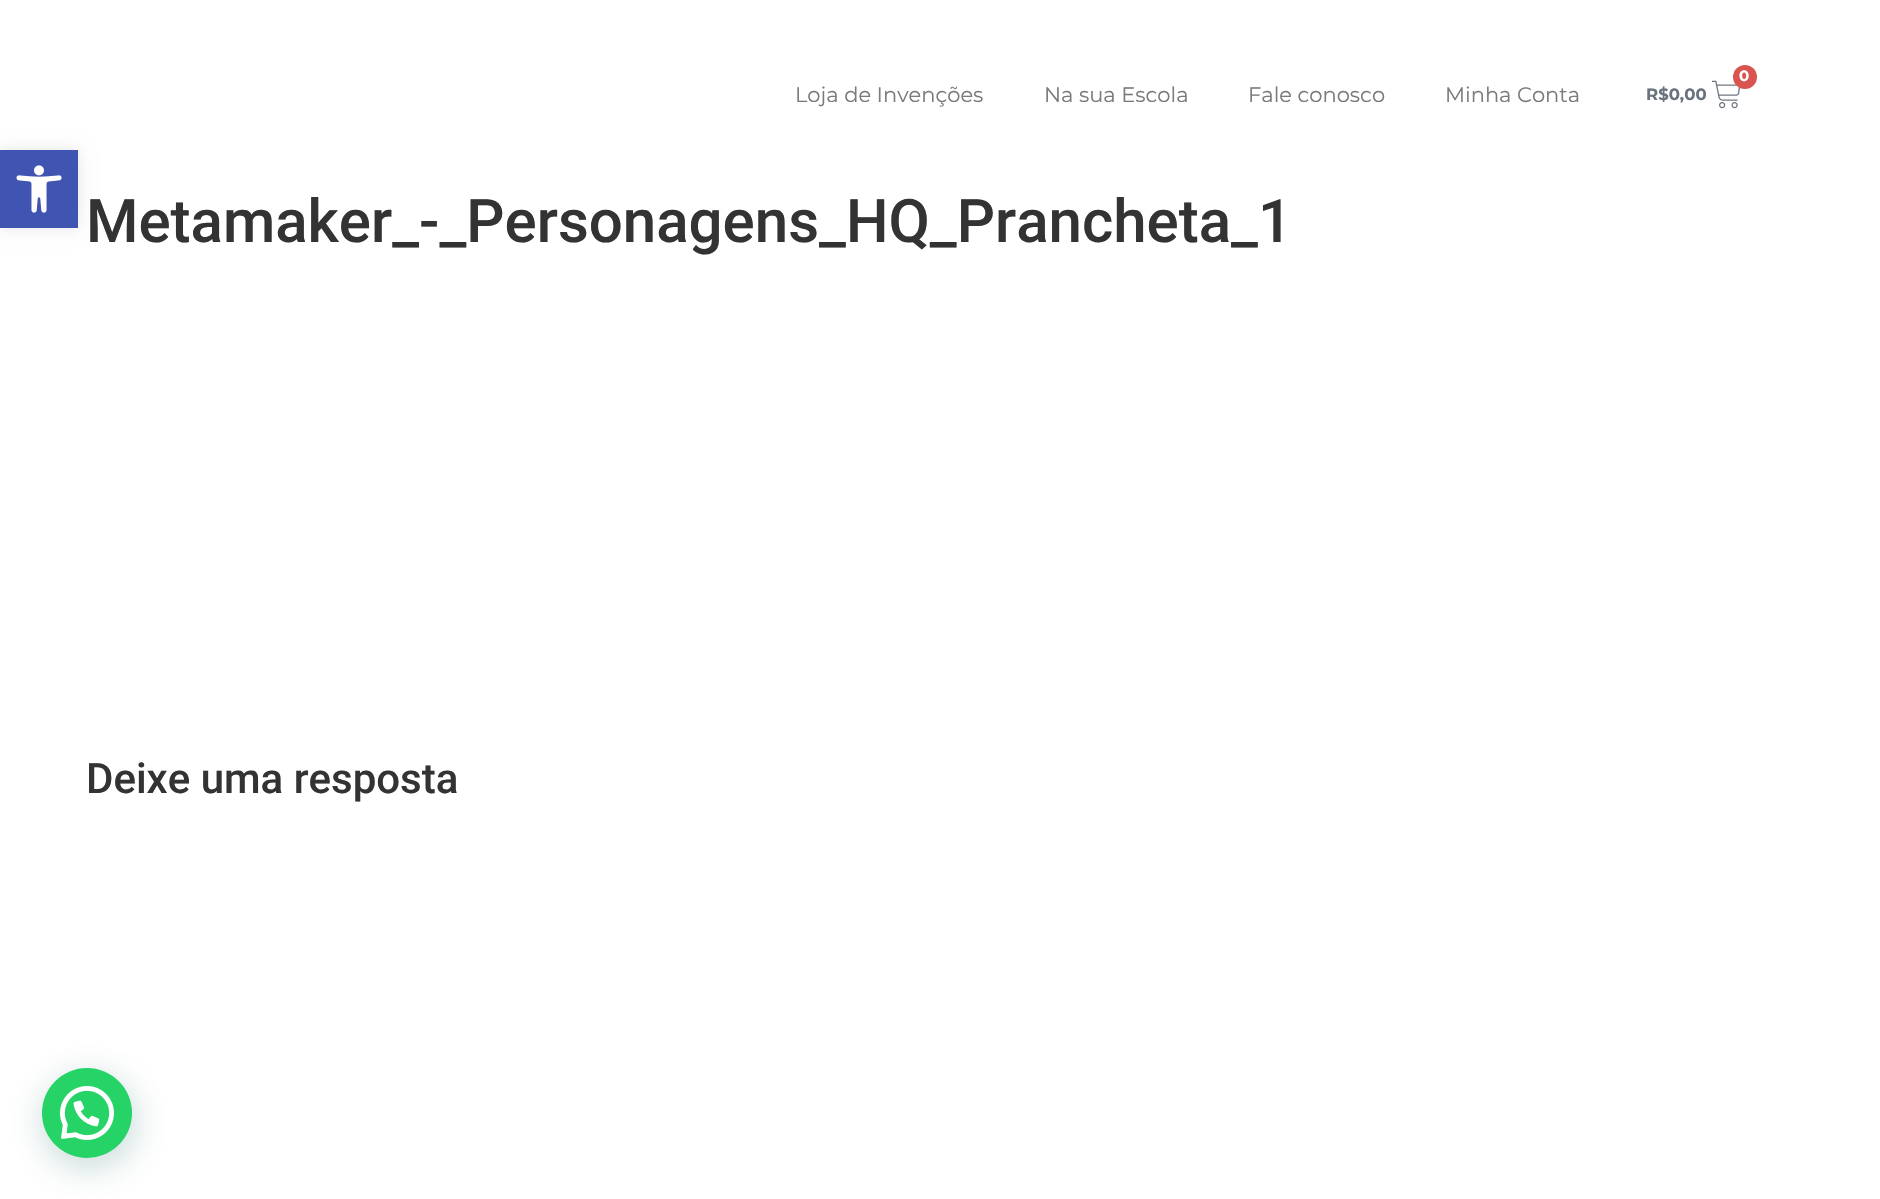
#include "include/core/SkBlurTypes.h"
#include "include/core/SkCanvas.h"
#include "include/core/SkData.h"
#include "include/core/SkFont.h"
#include "include/core/SkFontMgr.h"
#include "include/core/SkImage.h"
#include "include/core/SkMaskFilter.h"
#include "include/core/SkPaint.h"
#include "include/core/SkPathBuilder.h"
#include "include/core/SkTextBlob.h"
#include "include/effects/SkDashPathEffect.h"
#include "include/effects/SkGradientShader.h"
#include "include/utils/SkParsePath.h"

extern sk_sp<SkFontMgr> fontMgr;

void draw(SkCanvas* canvas) {
    SkPaint p;
    p.setAntiAlias(true);
    auto font = [&](const char* family, int weight, float size, bool italic = false) {
        SkFontStyle style(weight, SkFontStyle::kNormal_Width,
            italic ? SkFontStyle::kItalic_Slant : SkFontStyle::kUpright_Slant);
        SkFont result(fontMgr->matchFamilyStyle(family, style), size);
        result.setSubpixel(true);
        return result;
    };
    auto drawPhoto = [&](const char* path, float l, float t, float r, float b) {
        auto image = SkImages::DeferredFromEncodedData(SkData::MakeFromFileName(path));
        canvas->drawImageRect(image, SkRect::MakeLTRB(l, t, r, b), SkSamplingOptions());
    };
    canvas->clear(0xFFFFFFFF);
    auto font1 = font("Montserrat", 400, 21);
    p.setColor(0xFF7A7A7A);
    {
        const struct { const char* s; float x, y; } items[] = {
            {"Loja de Invenções", 795, 102},
            {"Na sua Escola", 1044, 102},
            {"Fale conosco", 1248, 102},
            {"Minha Conta", 1445, 102},
        };
        for (auto [s, x, y] : items) {
            canvas->drawString(s, x, y, font1, p);
        }
    }
    drawPhoto("media/1.png", 1712, 80, 1740, 109);
    p.setColor(0xFFD9534F);
    canvas->drawCircle(1745, 77, 12, p);
    auto font2 = font("Montserrat", 700, 15);
    p.setColor(0xFFFFFFFF);
    canvas->drawString("0", 1739, 81, font2, p);
    auto font3 = font("Montserrat", 700, 16.5f);
    p.setColor(0xFF69727D);
    canvas->drawString("R$0,00", 1646, 100, font3, p);
    p.setColor(0x1A000000);
    p.setMaskFilter(SkMaskFilter::MakeBlur(kNormal_SkBlurStyle, 7.5f));
    canvas->drawRect(SkRect::MakeLTRB(0, 150, 78, 228), p);
    p.setMaskFilter(nullptr);
    p.setColor(0xFF4054B2);
    canvas->drawRect(SkRect::MakeLTRB(0, 150, 78, 228), p);
    drawPhoto("media/2.png", 16, 165, 62, 213);
    auto font4 = font("Roboto", 500, 60);
    p.setColor(0xFF333333);
    canvas->drawString("Metamaker_-_Personagens_HQ_Prancheta_1", 86, 242, font4, p);
    auto font5 = font("Roboto", 500, 42);
    canvas->drawString("Deixe uma resposta", 86, 793, font5, p);
    p.setColor(0x3D075E54);
    p.setMaskFilter(SkMaskFilter::MakeBlur(kNormal_SkBlurStyle, 18));
    canvas->drawRoundRect(SkRect::MakeLTRB(44, 1077, 134, 1167), 45, 45, p);
    p.setMaskFilter(nullptr);
    p.setColor(0xFF25D366);
    canvas->drawCircle(87, 1113, 45, p);
    drawPhoto("media/3.png", 60, 1086, 114, 1140);
}
